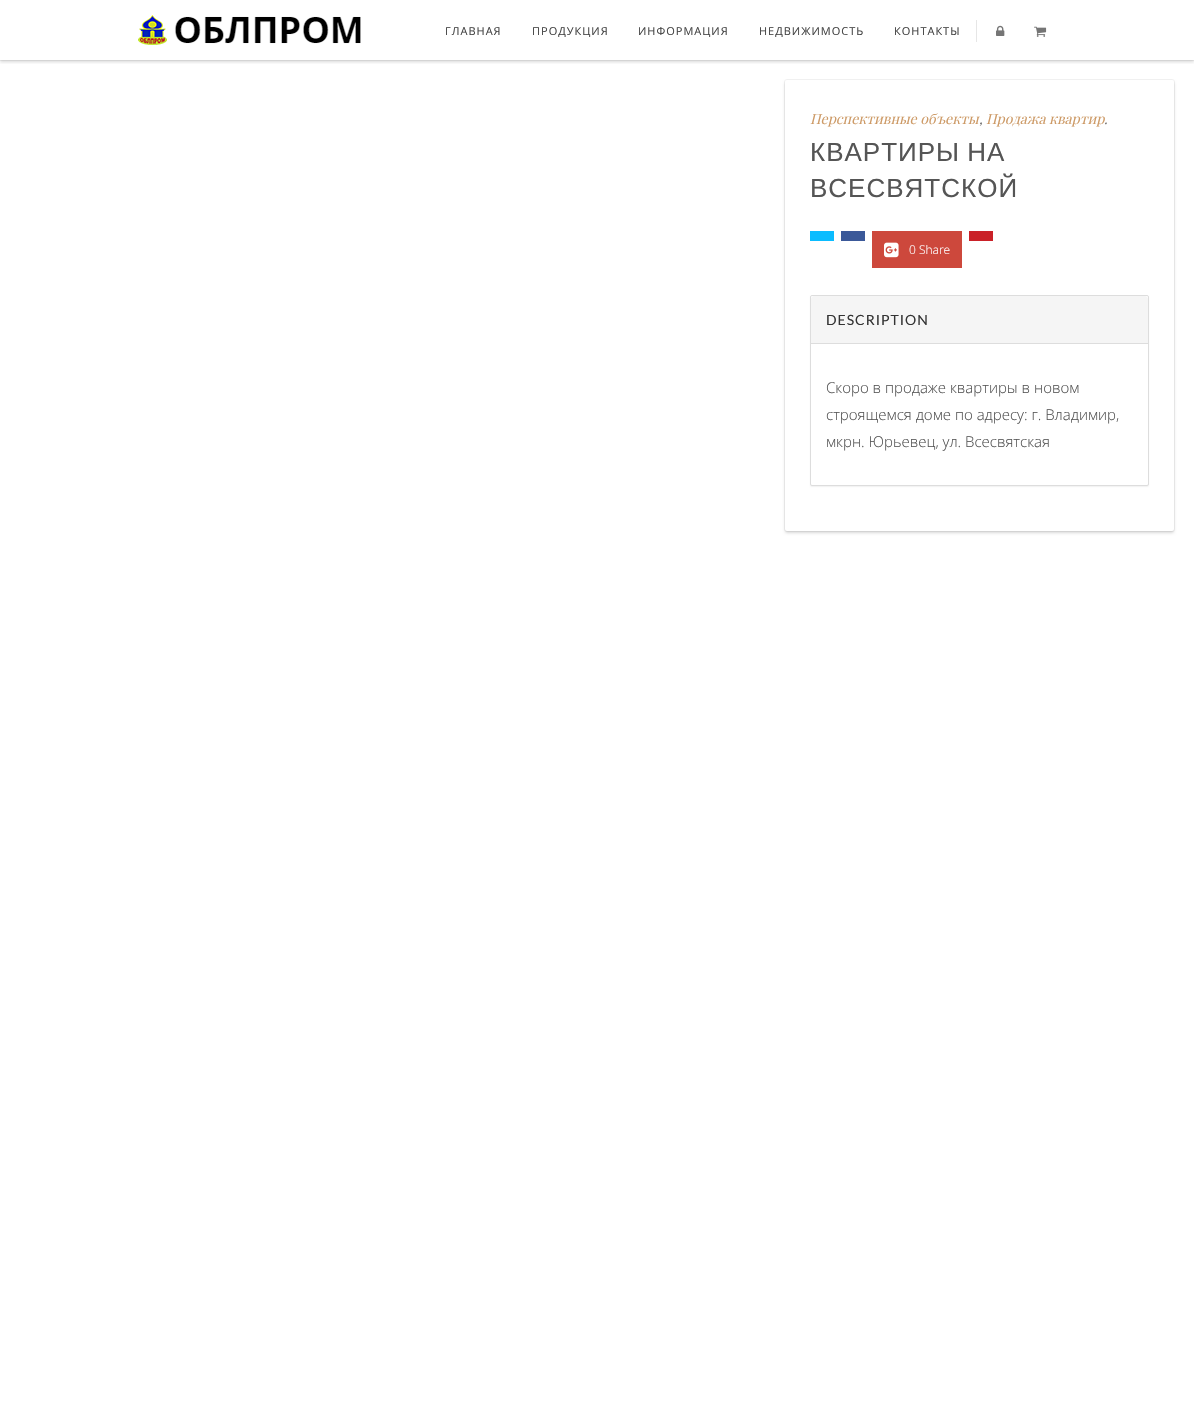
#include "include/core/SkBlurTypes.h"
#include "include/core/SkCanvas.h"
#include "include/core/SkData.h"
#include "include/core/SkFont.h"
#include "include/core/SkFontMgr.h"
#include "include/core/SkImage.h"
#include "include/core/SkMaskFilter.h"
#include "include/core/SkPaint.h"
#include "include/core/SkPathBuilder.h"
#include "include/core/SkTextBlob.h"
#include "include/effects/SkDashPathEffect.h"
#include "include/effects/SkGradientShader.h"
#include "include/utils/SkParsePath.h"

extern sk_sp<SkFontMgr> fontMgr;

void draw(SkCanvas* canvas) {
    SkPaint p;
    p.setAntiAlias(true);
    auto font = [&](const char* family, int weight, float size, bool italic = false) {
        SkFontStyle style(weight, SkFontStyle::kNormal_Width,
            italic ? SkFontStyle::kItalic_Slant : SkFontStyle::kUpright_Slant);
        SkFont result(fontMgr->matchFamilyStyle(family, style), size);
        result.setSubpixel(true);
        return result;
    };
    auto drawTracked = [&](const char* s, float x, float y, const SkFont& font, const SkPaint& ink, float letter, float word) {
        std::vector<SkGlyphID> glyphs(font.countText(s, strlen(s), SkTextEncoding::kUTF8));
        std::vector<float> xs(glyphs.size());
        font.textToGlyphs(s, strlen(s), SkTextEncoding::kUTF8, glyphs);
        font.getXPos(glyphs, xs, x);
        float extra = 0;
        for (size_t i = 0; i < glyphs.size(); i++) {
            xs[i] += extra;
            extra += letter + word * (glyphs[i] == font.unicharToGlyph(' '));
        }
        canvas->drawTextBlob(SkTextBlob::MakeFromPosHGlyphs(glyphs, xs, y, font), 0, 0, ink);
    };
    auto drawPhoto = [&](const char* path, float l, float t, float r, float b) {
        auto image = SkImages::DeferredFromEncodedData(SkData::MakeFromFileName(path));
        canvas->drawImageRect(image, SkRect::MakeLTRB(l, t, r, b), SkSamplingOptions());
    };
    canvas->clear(0xFFFFFFFF);
    p.setStyle(SkPaint::kStroke_Style);
    p.setStrokeWidth(1);
    p.setColor(0xFFF2F2F2);
    canvas->drawRect(SkRect::MakeLTRB(-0.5f, -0.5f, 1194.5f, 60.5f), p);
    canvas->save();
    canvas->clipRect(SkRect::MakeLTRB(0, 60, 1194, 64));
    p.setStyle(SkPaint::kFill_Style);
    p.setColor(0x26000000);
    p.setMaskFilter(SkMaskFilter::MakeBlur(kNormal_SkBlurStyle, 1.5f));
    canvas->drawRect(SkRect::MakeLTRB(0, 2, 1194, 62), p);
    p.setMaskFilter(nullptr);
    canvas->restore();
    drawPhoto("media/1.png", 138, 15, 361, 45);
    auto font1 = font("Open Sans", 400, 11);
    p.setColor(0xFF444444);
    {
        const struct { const char* s; float x, y; } items[] = {
            {"ГЛАВНАЯ", 445, 35},
            {"ПРОДУКЦИЯ", 532, 35},
            {"ИНФОРМАЦИЯ", 638, 35},
            {"НЕДВИЖИМОСТЬ", 759, 35},
            {"КОНТАКТЫ", 894, 35},
        };
        for (auto [s, x, y] : items) {
            drawTracked(s, x, y, font1, p, 1, 0);
        }
    }
    p.setColor(0xFFE6E6E6);
    canvas->drawRect(SkRect::MakeLTRB(976, 20, 977, 42), p);
    drawPhoto("media/2.png", 996, 25, 1005, 36);
    drawPhoto("media/3.png", 1034, 26, 1047, 37);
    p.setStyle(SkPaint::kStroke_Style);
    p.setColor(0xFFF2F2F2);
    canvas->drawRoundRect(SkRect::MakeLTRB(784.5f, 79.5f, 1174.5f, 531.5f), 2.5f, 2.5f, p);
    p.setStyle(SkPaint::kFill_Style);
    p.setColor(0x26000000);
    p.setMaskFilter(SkMaskFilter::MakeBlur(kNormal_SkBlurStyle, 1.5f));
    canvas->drawRoundRect(SkRect::MakeLTRB(785, 82, 1174, 533), 2, 2, p);
    p.setMaskFilter(nullptr);
    p.setColor(0xFFFFFFFF);
    canvas->drawRoundRect(SkRect::MakeLTRB(785, 80, 1174, 531), 2, 2, p);
    auto font2 = font("Playfair Display", 400, 14, true);
    p.setColor(0xFFCD9A66);
    canvas->drawString("Перспективные объекты", 810, 124, font2, p);
    p.setColor(0xFF777777);
    canvas->drawString(",", 979, 124, font2, p);
    p.setColor(0xFFCD9A66);
    canvas->drawString("Продажа квартир", 986, 124, font2, p);
    p.setColor(0xFF777777);
    canvas->drawString(".", 1104, 124, font2, p);
    auto font3 = font("Liberation Sans", 400, 26);
    p.setColor(0xFF555555);
    drawTracked("КВАРТИРЫ НА", 810, 161, font3, p, 1, -1);
    drawTracked("ВСЕСВЯТСКОЙ", 810, 197, font3, p, 1, 0);
    {
        const struct { float l, t, r, b; SkColor color; } items[] = {
            {810, 231, 834, 241, 0xFF0BBCFF},
            {841, 231, 865, 241, 0xFF3B5999},
            {969, 231, 993, 241, 0xFFCA2128},
            {872, 231, 962, 268, 0xFFCD483C},
        };
        for (auto [l, t, r, b, color] : items) {
            p.setColor(color);
            canvas->drawRect(SkRect::MakeLTRB(l, t, r, b), p);
        }
    }
    drawPhoto("media/4.png", 884, 242, 899, 258);
    auto font4 = font("Open Sans", 300, 12);
    p.setColor(0xFFFFFFFF);
    canvas->drawString("0 Share", 909, 254, font4, p);
    p.setColor(0x0D000000);
    p.setMaskFilter(SkMaskFilter::MakeBlur(kNormal_SkBlurStyle, 0.5f));
    canvas->drawRoundRect(SkRect::MakeLTRB(810, 296, 1149, 487), 2, 2, p);
    p.setMaskFilter(nullptr);
    p.setColor(0xFFFFFFFF);
    canvas->drawRoundRect(SkRect::MakeLTRB(810.5f, 295.5f, 1148.5f, 485.5f), 1.5f, 1.5f, p);
    p.setStyle(SkPaint::kStroke_Style);
    p.setColor(0xFFDDDDDD);
    canvas->drawRoundRect(SkRect::MakeLTRB(810.5f, 295.5f, 1148.5f, 485.5f), 1.5f, 1.5f, p);
    p.setStyle(SkPaint::kFill_Style);
    p.setColor(0xFFF5F5F5);
    canvas->drawPath(SkPathBuilder().moveTo(814, 296).lineTo(1145, 296).cubicTo(1146.5f, 296, 1148, 297.5f, 1148, 299).lineTo(1148, 343).lineTo(811, 343).lineTo(811, 299).cubicTo(811, 297.5f, 812.5f, 296, 814, 296).close().detach(), p);
    auto font5 = font("Lato", 400, 14);
    p.setColor(0xFF333333);
    drawTracked("DESCRIPTION", 826, 325, font5, p, 1, 0);
    p.setColor(0xFFDDDDDD);
    canvas->drawRect(SkRect::MakeLTRB(811, 343, 1148, 344), p);
    auto font6 = font("Open Sans", 300, 15);
    p.setColor(0xFF555555);
    {
        const struct { const char* s; float x, y; } items[] = {
            {"Скоро в продаже квартиры в новом", 826, 393},
            {"строящемся доме по адресу: г. Владимир,", 826, 420},
            {"мкрн. Юрьевец, ул. Всесвятская", 826, 447},
        };
        for (auto [s, x, y] : items) {
            canvas->drawString(s, x, y, font6, p);
        }
    }
}
